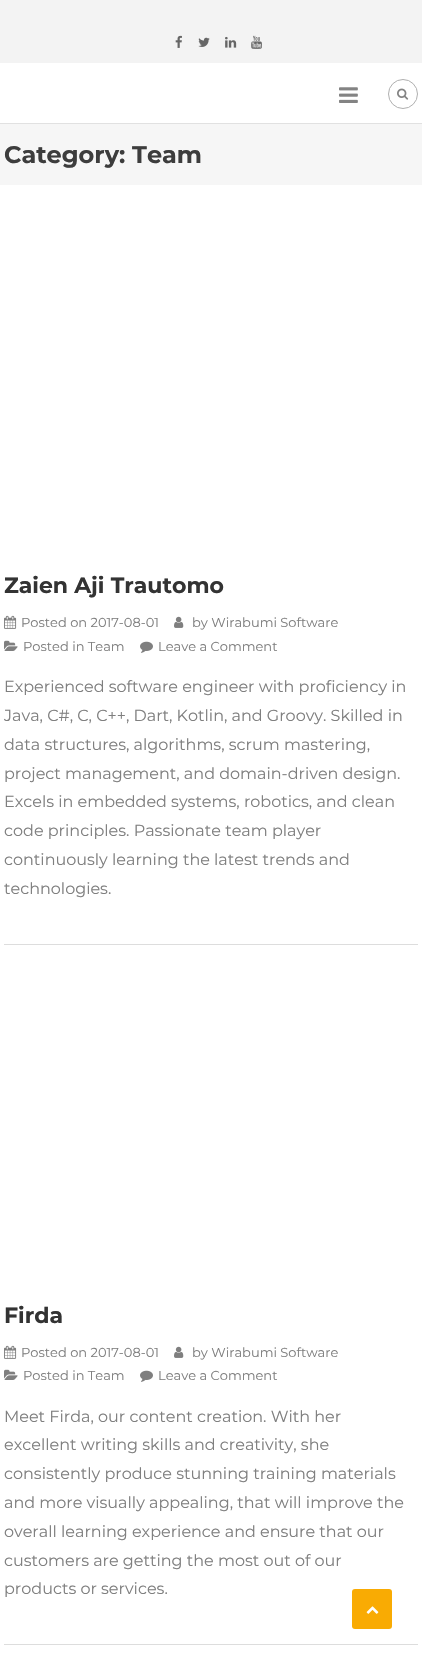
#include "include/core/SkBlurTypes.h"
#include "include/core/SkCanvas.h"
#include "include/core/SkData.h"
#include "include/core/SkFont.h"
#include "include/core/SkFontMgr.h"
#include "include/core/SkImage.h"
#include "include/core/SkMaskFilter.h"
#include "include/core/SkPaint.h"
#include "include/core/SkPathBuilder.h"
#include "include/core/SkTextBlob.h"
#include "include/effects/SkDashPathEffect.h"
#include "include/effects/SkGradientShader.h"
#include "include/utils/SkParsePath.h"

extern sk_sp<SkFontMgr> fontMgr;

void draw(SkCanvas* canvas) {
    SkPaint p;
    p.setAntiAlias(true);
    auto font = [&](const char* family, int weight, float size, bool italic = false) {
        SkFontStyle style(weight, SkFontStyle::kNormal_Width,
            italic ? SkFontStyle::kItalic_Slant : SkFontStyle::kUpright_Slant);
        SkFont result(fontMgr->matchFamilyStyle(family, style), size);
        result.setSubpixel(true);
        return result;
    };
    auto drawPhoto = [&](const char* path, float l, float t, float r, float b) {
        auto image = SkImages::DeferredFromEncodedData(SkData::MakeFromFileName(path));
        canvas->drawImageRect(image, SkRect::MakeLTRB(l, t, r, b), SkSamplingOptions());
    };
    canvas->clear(0xFFFFFFFF);
    p.setColor(0xFFF3F3F3);
    canvas->drawRect(SkRect::MakeLTRB(0, 0, 422, 63), p);
    drawPhoto("media/1.png", 175, 35, 182, 48);
    drawPhoto("media/2.png", 198, 37, 210, 47);
    drawPhoto("media/3.png", 225, 36, 237, 48);
    drawPhoto("media/4.png", 251, 35, 262, 49);
    p.setColor(0xFFE1E1E1);
    canvas->drawRect(SkRect::MakeLTRB(0, 123, 422, 124), p);
    drawPhoto("media/5.png", 339, 87, 358, 103);
    p.setStyle(SkPaint::kStroke_Style);
    p.setStrokeWidth(1);
    p.setColor(0xFFAFAFAF);
    canvas->drawCircle(403, 94, 14.5f, p);
    drawPhoto("media/6.png", 397, 88, 409, 100);
    p.setStyle(SkPaint::kFill_Style);
    p.setColor(0xFFF6F6F6);
    canvas->drawRect(SkRect::MakeLTRB(0, 124, 422, 185), p);
    auto font1 = font("Montserrat", 700, 24);
    p.setColor(0xFF3D3D3D);
    canvas->drawString("Category: Team", 4, 163, font1, p);
    p.setColor(0xFFDDDDDD);
    canvas->drawRect(SkRect::MakeLTRB(4, 944, 418, 945), p);
    auto font2 = font("Montserrat", 700, 22);
    p.setColor(0xFF333333);
    canvas->drawString("Zaien Aji Trautomo", 4, 593, font2, p);
    drawPhoto("media/7.png", 4, 615, 17, 629);
    auto font3 = font("Montserrat", 400, 13);
    p.setColor(0xFF7F7F7F);
    canvas->drawString("Posted on 2017-08-01", 21, 627, font3, p);
    drawPhoto("media/8.png", 174, 616, 184, 628);
    canvas->drawString("by Wirabumi Software", 192, 627, font3, p);
    drawPhoto("media/9.png", 4, 640, 18, 651);
    canvas->drawString("Posted in Team", 23, 651, font3, p);
    drawPhoto("media/10.png", 140, 641, 153, 653);
    canvas->drawString("Leave a Comment", 158, 651, font3, p);
    auto font4 = font("Montserrat", 400, 16);
    {
        const struct { const char* s; float x, y; } items[] = {
            {"Experienced software engineer with proficiency in", 4, 692},
            {"Java, C#, C, C++, Dart, Kotlin, and Groovy. Skilled in", 4, 721},
            {"data structures, algorithms, scrum mastering,", 4, 750},
            {"project management, and domain-driven design.", 4, 779},
            {"Excels in embedded systems, robotics, and clean", 4, 807},
            {"code principles. Passionate team player", 4, 836},
            {"continuously learning the latest trends and", 4, 865},
            {"technologies.", 4, 894},
        };
        for (auto [s, x, y] : items) {
            canvas->drawString(s, x, y, font4, p);
        }
    }
    p.setColor(0xFFDDDDDD);
    canvas->drawRect(SkRect::MakeLTRB(4, 1644, 418, 1645), p);
    p.setColor(0xFF333333);
    canvas->drawString("Firda", 4, 1323, font2, p);
    drawPhoto("media/7.png", 4, 1345, 17, 1359);
    p.setColor(0xFF7F7F7F);
    canvas->drawString("Posted on 2017-08-01", 21, 1357, font3, p);
    drawPhoto("media/8.png", 174, 1346, 184, 1358);
    canvas->drawString("by Wirabumi Software", 192, 1357, font3, p);
    drawPhoto("media/9.png", 4, 1369, 18, 1380);
    canvas->drawString("Posted in Team", 23, 1380, font3, p);
    drawPhoto("media/10.png", 140, 1370, 153, 1382);
    canvas->drawString("Leave a Comment", 158, 1380, font3, p);
    {
        const struct { const char* s; float x, y; } items[] = {
            {"Meet Firda, our content creation. With her", 4, 1422},
            {"excellent writing skills and creativity, she", 4, 1450},
            {"consistently produce stunning training materials", 4, 1479},
            {"and more visually appealing, that will improve the", 4, 1508},
            {"overall learning experience and ensure that our", 4, 1537},
            {"customers are getting the most out of our", 4, 1566},
            {"products or services.", 4, 1594},
        };
        for (auto [s, x, y] : items) {
            canvas->drawString(s, x, y, font4, p);
        }
    }
    p.setColor(0xFFF9AB03);
    canvas->drawRoundRect(SkRect::MakeLTRB(352, 1589, 392, 1629), 3, 3, p);
    drawPhoto("media/11.png", 366, 1606, 379, 1614);
}
